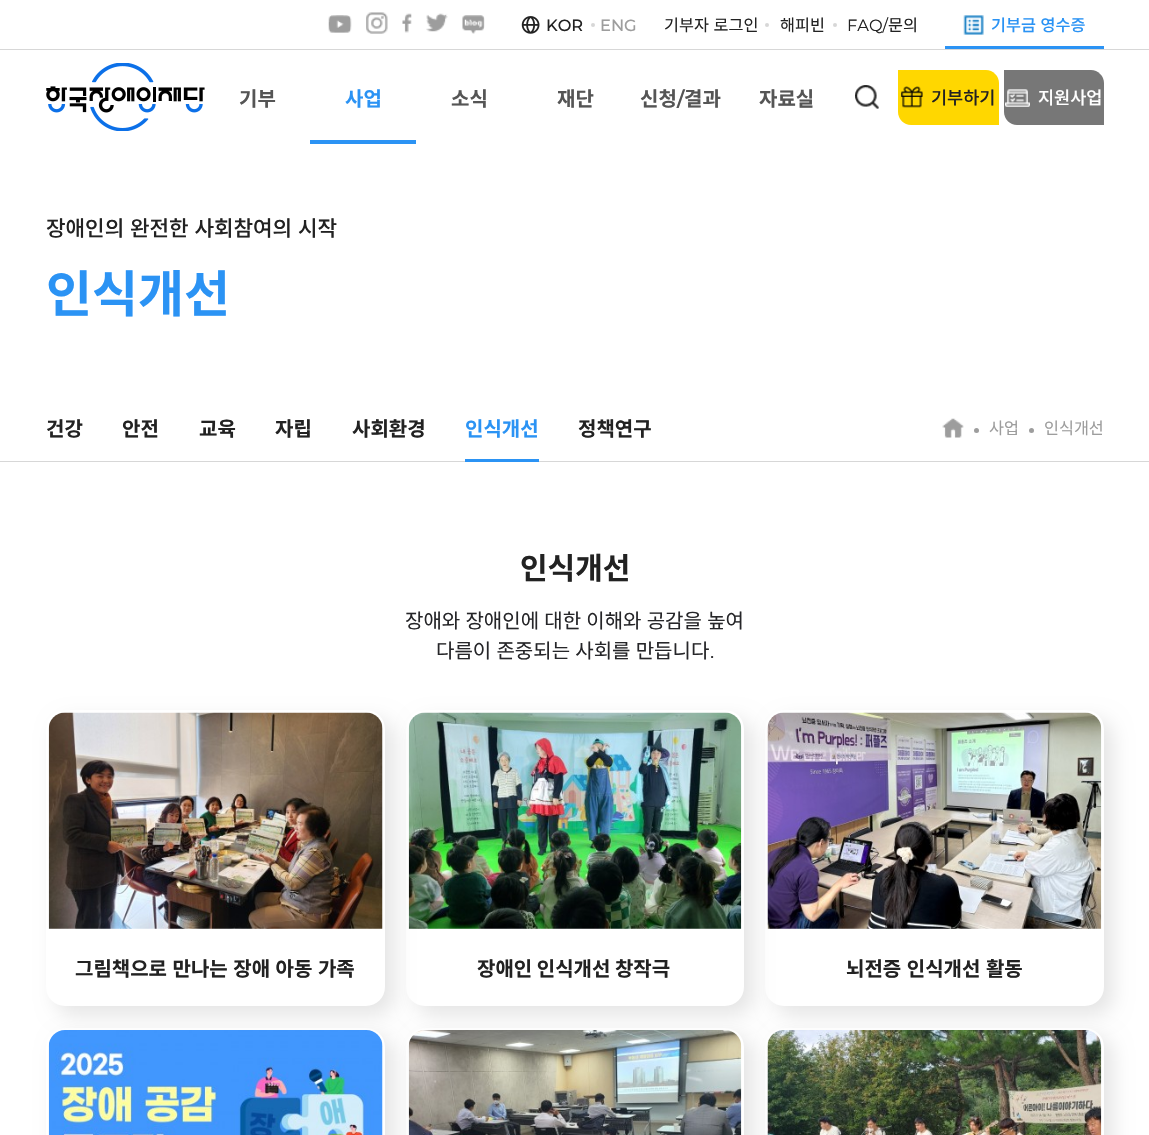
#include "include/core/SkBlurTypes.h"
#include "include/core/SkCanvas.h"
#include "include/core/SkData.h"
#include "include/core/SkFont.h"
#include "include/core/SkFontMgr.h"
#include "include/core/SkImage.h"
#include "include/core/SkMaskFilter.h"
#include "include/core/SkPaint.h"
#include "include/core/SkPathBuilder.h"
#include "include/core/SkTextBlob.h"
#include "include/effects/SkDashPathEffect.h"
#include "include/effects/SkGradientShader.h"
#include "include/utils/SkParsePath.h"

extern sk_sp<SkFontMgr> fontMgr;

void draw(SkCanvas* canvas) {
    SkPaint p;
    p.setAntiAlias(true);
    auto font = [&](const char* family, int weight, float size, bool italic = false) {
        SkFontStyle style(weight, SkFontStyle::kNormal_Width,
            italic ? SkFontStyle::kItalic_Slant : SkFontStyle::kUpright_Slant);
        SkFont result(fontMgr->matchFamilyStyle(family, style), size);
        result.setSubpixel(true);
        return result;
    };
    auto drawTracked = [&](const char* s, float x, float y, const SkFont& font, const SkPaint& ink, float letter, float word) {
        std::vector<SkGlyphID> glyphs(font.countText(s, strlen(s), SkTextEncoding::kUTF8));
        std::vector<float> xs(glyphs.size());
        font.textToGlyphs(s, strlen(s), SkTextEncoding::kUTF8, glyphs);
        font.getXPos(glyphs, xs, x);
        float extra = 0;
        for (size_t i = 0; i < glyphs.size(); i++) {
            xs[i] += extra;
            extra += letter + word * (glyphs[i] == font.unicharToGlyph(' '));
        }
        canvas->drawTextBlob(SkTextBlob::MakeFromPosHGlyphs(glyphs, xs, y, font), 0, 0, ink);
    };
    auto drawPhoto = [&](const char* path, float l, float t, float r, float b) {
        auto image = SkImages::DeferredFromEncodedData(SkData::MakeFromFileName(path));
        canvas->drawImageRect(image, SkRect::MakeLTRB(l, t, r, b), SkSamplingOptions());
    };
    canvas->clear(0xFFFFFFFF);
    p.setColor(0xFFD7D7D7);
    canvas->drawRect(SkRect::MakeLTRB(0, 49, 1149, 50), p);
    drawPhoto("media/1.png", 328, 15, 352, 33);
    drawPhoto("media/2.png", 366, 12, 388, 34);
    drawPhoto("media/3.png", 402, 13, 412, 33);
    drawPhoto("media/4.png", 426, 13, 448, 32);
    drawPhoto("media/5.png", 462, 15, 485, 34);
    drawPhoto("media/6.png", 521, 16, 540, 34);
    auto font1 = font("Montserrat", 500, 16.25f);
    p.setColor(0xFF222222);
    canvas->drawString("KOR", 546, 31, font1, p);
    p.setColor(0xFFD7D7D7);
    canvas->drawCircle(593, 25, 2, p);
    p.setColor(0xFF9D9D9D);
    canvas->drawString("ENG", 600, 31, font1, p);
    auto font2 = font("Noto Sans KR", 400, 16.25f);
    p.setColor(0xFF222222);
    drawTracked("기부자 로그인", 664, 31, font2, p, 0, 1);
    p.setColor(0xFFD7D7D7);
    canvas->drawCircle(767, 25, 2, p);
    p.setColor(0xFF222222);
    canvas->drawString("해피빈", 780, 31, font2, p);
    p.setColor(0xFFD7D7D7);
    canvas->drawCircle(835, 25, 2, p);
    auto font3 = font("Montserrat", 400, 16.25f);
    p.setColor(0xFF222222);
    canvas->drawString("FAQ/", 847, 31, font3, p);
    canvas->drawString("문의", 888, 31, font2, p);
    drawPhoto("media/7.png", 963, 15, 984, 35);
    auto font4 = font("Noto Sans KR", 500, 16.25f);
    p.setColor(0xFF2B93F4);
    drawTracked("기부금 영수증", 991, 31, font4, p, 0, 1);
    canvas->drawRect(SkRect::MakeLTRB(945, 46, 1104, 49), p);
    drawPhoto("media/8.png", 46, 63, 205, 131);
    auto font5 = font("Noto Sans KR", 700, 20);
    p.setColor(0xFF555555);
    canvas->drawString("기부", 239, 106, font5, p);
    p.setColor(0xFF2B93F4);
    canvas->drawString("사업", 345, 106, font5, p);
    canvas->drawRect(SkRect::MakeLTRB(310, 140, 416, 144), p);
    p.setColor(0xFF555555);
    {
        const struct { const char* s; float x, y; } items[] = {
            {"소식", 451, 106},
            {"재단", 557, 106},
            {"신청", 640, 106},
        };
        for (auto [s, x, y] : items) {
            canvas->drawString(s, x, y, font5, p);
        }
    }
    auto font6 = font("Montserrat", 600, 20);
    canvas->drawString("/", 677, 106, font6, p);
    canvas->drawString("결과", 684, 106, font5, p);
    canvas->drawString("자료실", 759, 106, font5, p);
    drawPhoto("media/9.png", 855, 85, 879, 109);
    p.setColor(0xFFFFD700);
    canvas->drawPath(SkPathBuilder().moveTo(898, 70).lineTo(986, 70).cubicTo(993, 70, 999, 76, 999, 83).lineTo(999, 125).lineTo(911, 125).cubicTo(904, 125, 898, 119, 898, 112).close().detach(), p);
    drawPhoto("media/10.png", 901, 86, 923, 108);
    auto font7 = font("Noto Sans KR", 500, 17.5f);
    p.setColor(0xFF222222);
    canvas->drawString("기부하기", 931, 104, font7, p);
    p.setColor(0xFF777777);
    canvas->drawPath(SkPathBuilder().moveTo(1004, 70).lineTo(1091, 70).cubicTo(1098, 70, 1104, 76, 1104, 83).lineTo(1104, 125).lineTo(1017, 125).cubicTo(1010, 125, 1004, 119, 1004, 112).close().detach(), p);
    drawPhoto("media/11.png", 1005, 89, 1030, 107);
    p.setColor(0xFFFFFFFF);
    canvas->drawString("지원사업", 1038, 104, font7, p);
    auto font8 = font("Noto Sans KR", 500, 21.25f);
    p.setColor(0xFF222222);
    drawTracked("장애인의 완전한 사회참여의 시작", 46, 236, font8, p, 0, 1);
    auto font9 = font("Noto Sans KR", 700, 50);
    p.setColor(0xFF2B93F4);
    canvas->drawString("인식개선", 46, 312, font9, p);
    p.setColor(0xFFD7D7D7);
    canvas->drawRect(SkRect::MakeLTRB(0, 461, 1149, 462), p);
    p.setColor(0xFF222222);
    {
        const struct { const char* s; float x, y; } items[] = {
            {"건강", 46, 436},
            {"안전", 122, 436},
            {"교육", 199, 436},
            {"자립", 275, 436},
            {"사회환경", 352, 436},
        };
        for (auto [s, x, y] : items) {
            canvas->drawString(s, x, y, font5, p);
        }
    }
    p.setColor(0xFF2B93F4);
    canvas->drawString("인식개선", 465, 436, font5, p);
    canvas->drawRect(SkRect::MakeLTRB(465, 459, 539, 462), p);
    p.setColor(0xFF222222);
    canvas->drawString("정책연구", 578, 436, font5, p);
    drawPhoto("media/12.png", 942, 418, 964, 438);
    p.setColor(0xFF9D9D9D);
    canvas->drawCircle(976.5f, 430.5f, 2.5f, p);
    canvas->drawString("사업", 989, 434, font2, p);
    canvas->drawCircle(1031.5f, 430.5f, 2.5f, p);
    canvas->drawString("인식개선", 1044, 434, font2, p);
    auto font10 = font("Noto Sans KR", 700, 30);
    p.setColor(0xFF222222);
    canvas->drawString("인식개선", 520, 579, font10, p);
    auto font11 = font("Noto Sans KR", 400, 20);
    p.setColor(0xFF262629);
    drawTracked("장애와 장애인에 대한 이해와 공감을 높여", 405, 628, font11, p, 0, 0.75f);
    drawTracked("다름이 존중되는 사회를 만듭니다", 436, 658, font11, p, 0, 0.75f);
    auto font12 = font("Montserrat", 400, 20);
    canvas->drawString(".", 710, 658, font12, p);
    canvas->save();
    canvas->clipPath(SkPathBuilder(SkPathFillType::kEvenOdd).moveTo(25, 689).lineTo(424, 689).lineTo(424, 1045).lineTo(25, 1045).close().moveTo(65, 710).lineTo(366, 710).cubicTo(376.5f, 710, 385, 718.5f, 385, 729).lineTo(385, 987).cubicTo(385, 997.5f, 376.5f, 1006, 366, 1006).lineTo(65, 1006).cubicTo(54.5f, 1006, 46, 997.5f, 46, 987).lineTo(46, 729).cubicTo(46, 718.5f, 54.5f, 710, 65, 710).close().detach(), true);
    p.setColor(0x1A000000);
    p.setMaskFilter(SkMaskFilter::MakeBlur(kNormal_SkBlurStyle, 9.5f));
    canvas->drawRoundRect(SkRect::MakeLTRB(55, 719, 394, 1015), 19, 19, p);
    p.setMaskFilter(nullptr);
    canvas->restore();
    drawPhoto("media/13.png", 48, 712, 383, 929);
    p.setColor(0xFF222222);
    drawTracked("그림책으로 만나는 장애 아동 가족", 75, 976, font5, p, 0, 1);
    canvas->save();
    canvas->clipPath(SkPathBuilder(SkPathFillType::kEvenOdd).moveTo(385, 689).lineTo(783, 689).lineTo(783, 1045).lineTo(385, 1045).close().moveTo(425, 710).lineTo(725, 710).cubicTo(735.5f, 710, 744, 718.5f, 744, 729).lineTo(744, 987).cubicTo(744, 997.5f, 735.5f, 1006, 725, 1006).lineTo(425, 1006).cubicTo(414.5f, 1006, 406, 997.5f, 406, 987).lineTo(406, 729).cubicTo(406, 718.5f, 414.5f, 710, 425, 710).close().detach(), true);
    p.setColor(0x1A000000);
    p.setMaskFilter(SkMaskFilter::MakeBlur(kNormal_SkBlurStyle, 9.5f));
    canvas->drawRoundRect(SkRect::MakeLTRB(415, 719, 753, 1015), 19, 19, p);
    p.setMaskFilter(nullptr);
    canvas->restore();
    drawPhoto("media/14.png", 408, 712, 742, 929);
    p.setColor(0xFF222222);
    canvas->drawString("장애인 인식개선 창작극", 477, 976, font5, p);
    canvas->save();
    canvas->clipPath(SkPathBuilder(SkPathFillType::kEvenOdd).moveTo(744, 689).lineTo(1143, 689).lineTo(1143, 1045).lineTo(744, 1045).close().moveTo(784, 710).lineTo(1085, 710).cubicTo(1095.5f, 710, 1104, 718.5f, 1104, 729).lineTo(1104, 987).cubicTo(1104, 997.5f, 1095.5f, 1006, 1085, 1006).lineTo(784, 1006).cubicTo(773.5f, 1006, 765, 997.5f, 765, 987).lineTo(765, 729).cubicTo(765, 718.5f, 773.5f, 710, 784, 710).close().detach(), true);
    p.setColor(0x1A000000);
    p.setMaskFilter(SkMaskFilter::MakeBlur(kNormal_SkBlurStyle, 9.5f));
    canvas->drawRoundRect(SkRect::MakeLTRB(774, 719, 1113, 1015), 19, 19, p);
    p.setMaskFilter(nullptr);
    canvas->restore();
    drawPhoto("media/15.png", 767, 712, 1102, 929);
    p.setColor(0xFF222222);
    drawTracked("뇌전증 인식개선 활동", 846, 976, font5, p, 0, 1);
    canvas->save();
    canvas->clipPath(SkPathBuilder(SkPathFillType::kEvenOdd).moveTo(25, 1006).lineTo(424, 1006).lineTo(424, 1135).lineTo(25, 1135).close().moveTo(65, 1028).lineTo(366, 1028).cubicTo(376.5f, 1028, 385, 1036.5f, 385, 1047).lineTo(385, 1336).cubicTo(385, 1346.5f, 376.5f, 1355, 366, 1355).lineTo(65, 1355).cubicTo(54.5f, 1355, 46, 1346.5f, 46, 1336).lineTo(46, 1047).cubicTo(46, 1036.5f, 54.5f, 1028, 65, 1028).close().detach(), true);
    p.setColor(0x1A000000);
    p.setMaskFilter(SkMaskFilter::MakeBlur(kNormal_SkBlurStyle, 9.5f));
    canvas->drawRoundRect(SkRect::MakeLTRB(55, 1036, 394, 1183), 19, 19, p);
    p.setMaskFilter(nullptr);
    canvas->restore();
    drawPhoto("media/16.png", 48, 1030, 383, 1135);
    canvas->save();
    canvas->clipPath(SkPathBuilder(SkPathFillType::kEvenOdd).moveTo(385, 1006).lineTo(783, 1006).lineTo(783, 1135).lineTo(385, 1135).close().moveTo(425, 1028).lineTo(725, 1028).cubicTo(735.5f, 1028, 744, 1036.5f, 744, 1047).lineTo(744, 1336).cubicTo(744, 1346.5f, 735.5f, 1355, 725, 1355).lineTo(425, 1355).cubicTo(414.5f, 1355, 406, 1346.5f, 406, 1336).lineTo(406, 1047).cubicTo(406, 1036.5f, 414.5f, 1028, 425, 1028).close().detach(), true);
    p.setMaskFilter(SkMaskFilter::MakeBlur(kNormal_SkBlurStyle, 9.5f));
    canvas->drawRoundRect(SkRect::MakeLTRB(415, 1036, 753, 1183), 19, 19, p);
    p.setMaskFilter(nullptr);
    canvas->restore();
    drawPhoto("media/17.png", 408, 1030, 742, 1135);
    canvas->save();
    canvas->clipPath(SkPathBuilder(SkPathFillType::kEvenOdd).moveTo(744, 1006).lineTo(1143, 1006).lineTo(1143, 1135).lineTo(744, 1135).close().moveTo(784, 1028).lineTo(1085, 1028).cubicTo(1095.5f, 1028, 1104, 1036.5f, 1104, 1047).lineTo(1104, 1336).cubicTo(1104, 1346.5f, 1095.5f, 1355, 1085, 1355).lineTo(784, 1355).cubicTo(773.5f, 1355, 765, 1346.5f, 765, 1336).lineTo(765, 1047).cubicTo(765, 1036.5f, 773.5f, 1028, 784, 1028).close().detach(), true);
    p.setMaskFilter(SkMaskFilter::MakeBlur(kNormal_SkBlurStyle, 9.5f));
    canvas->drawRoundRect(SkRect::MakeLTRB(774, 1036, 1113, 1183), 19, 19, p);
    p.setMaskFilter(nullptr);
    canvas->restore();
    drawPhoto("media/18.png", 767, 1030, 1102, 1135);
}
